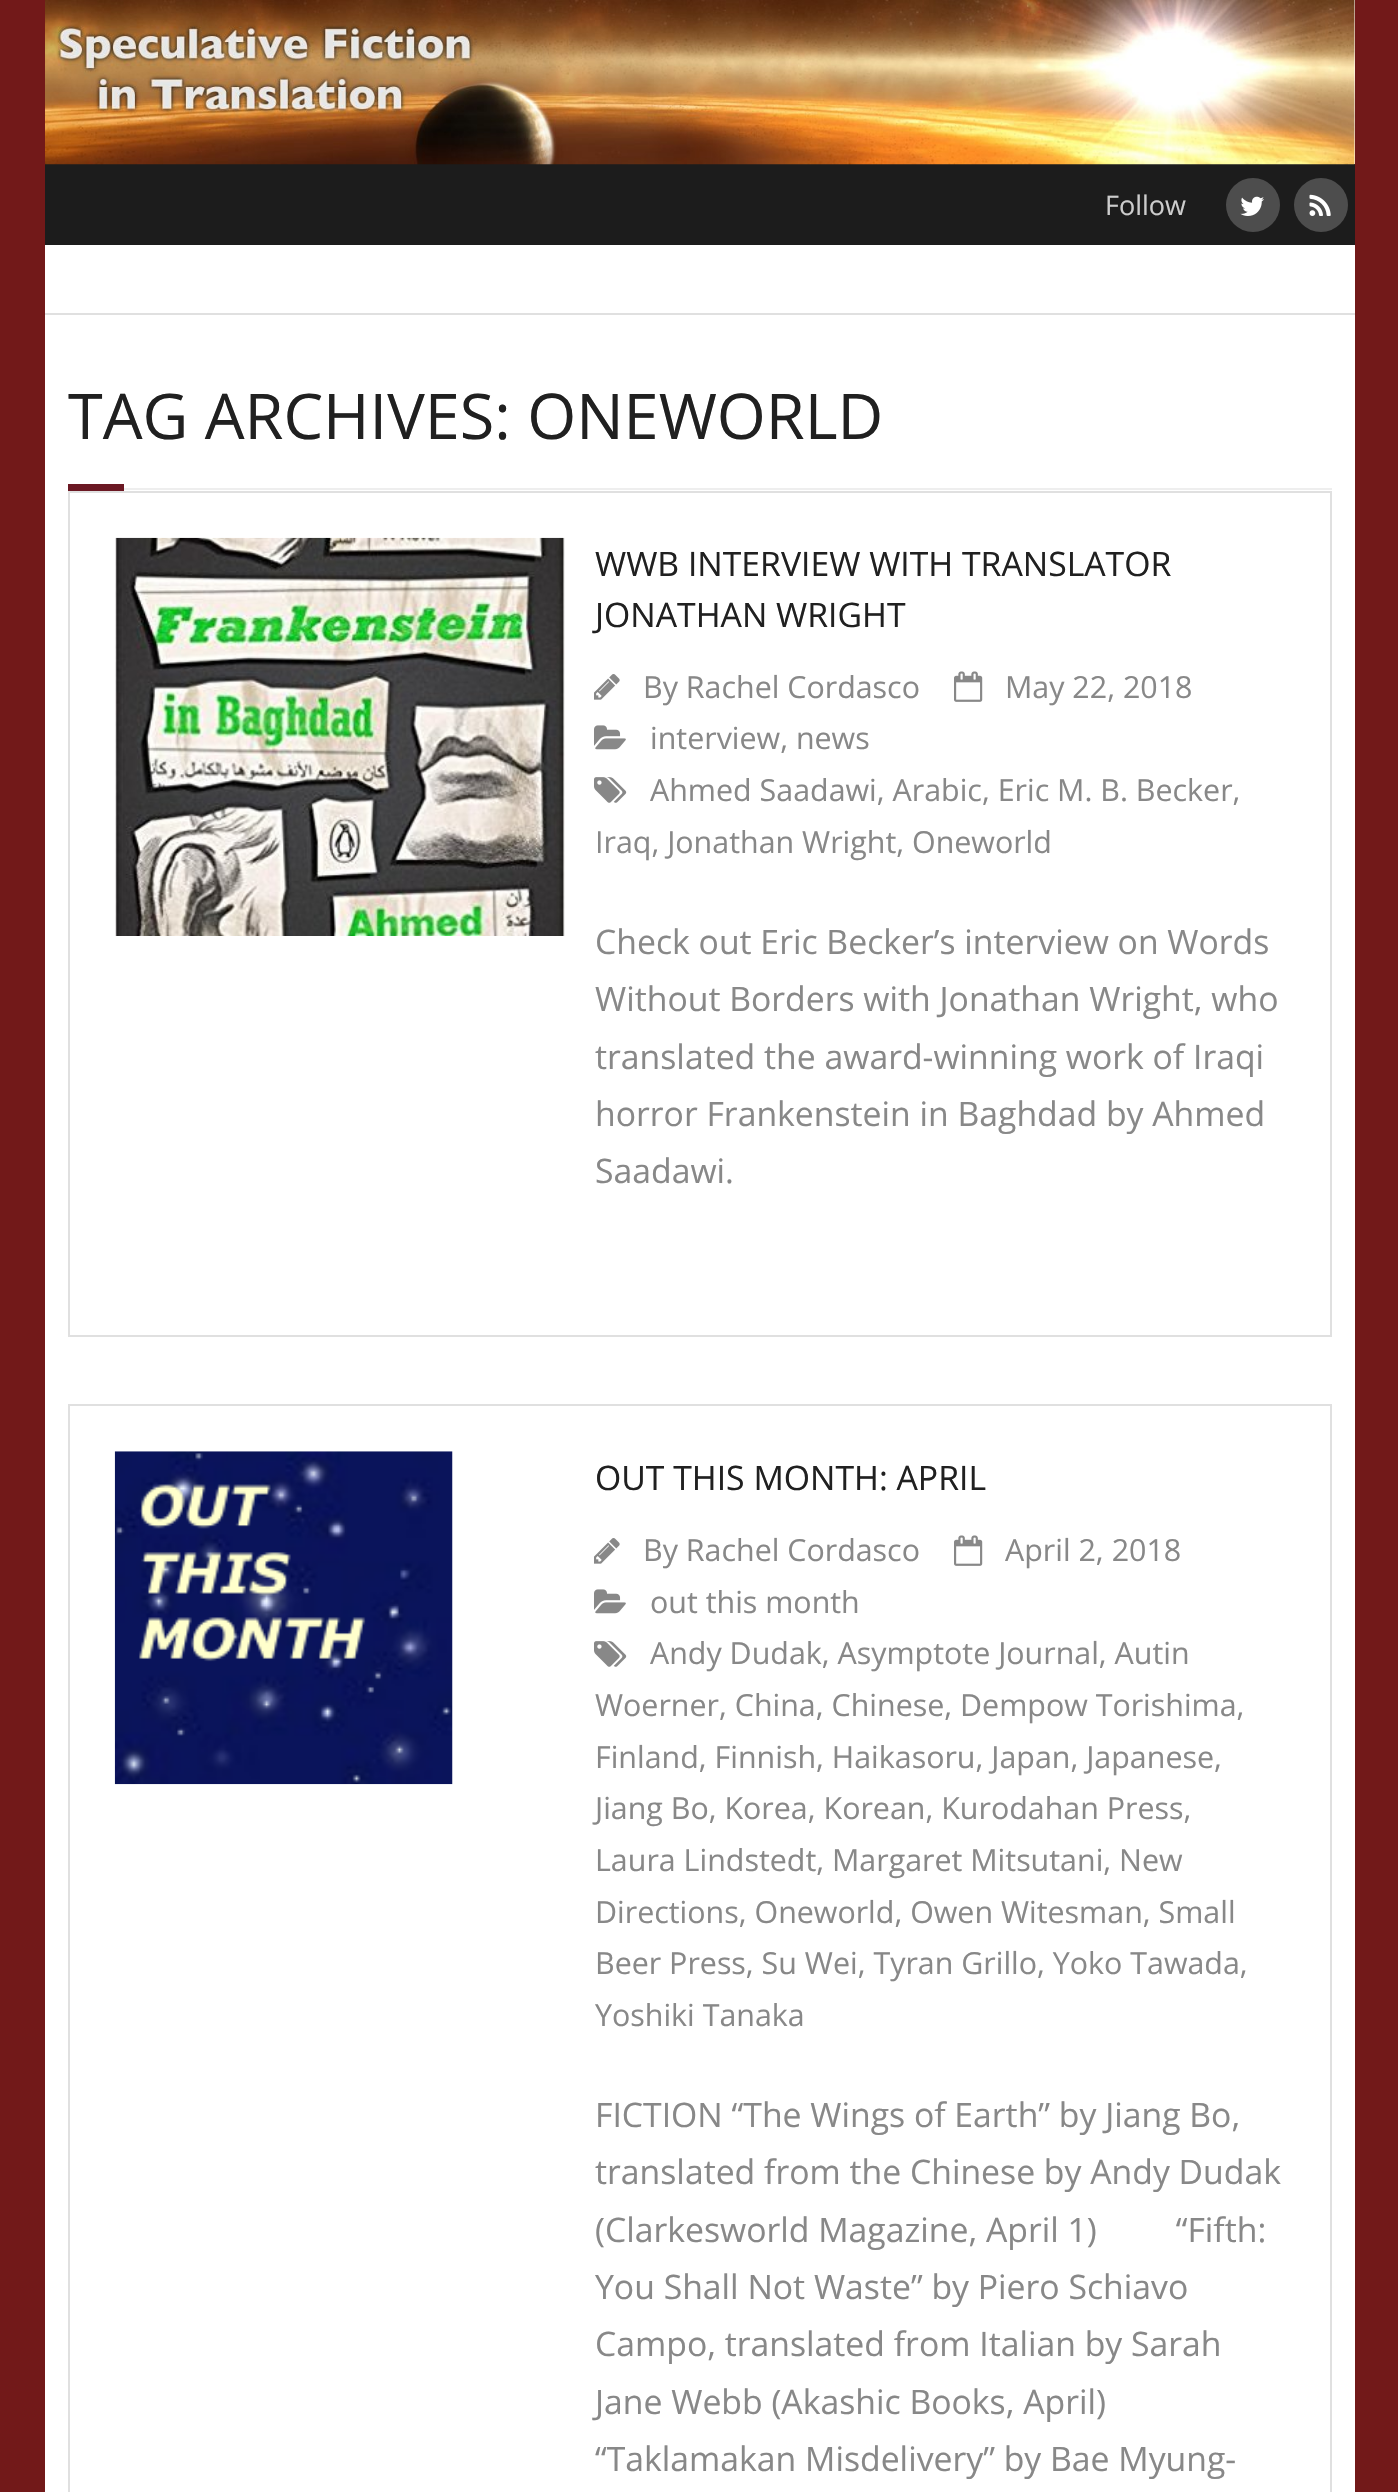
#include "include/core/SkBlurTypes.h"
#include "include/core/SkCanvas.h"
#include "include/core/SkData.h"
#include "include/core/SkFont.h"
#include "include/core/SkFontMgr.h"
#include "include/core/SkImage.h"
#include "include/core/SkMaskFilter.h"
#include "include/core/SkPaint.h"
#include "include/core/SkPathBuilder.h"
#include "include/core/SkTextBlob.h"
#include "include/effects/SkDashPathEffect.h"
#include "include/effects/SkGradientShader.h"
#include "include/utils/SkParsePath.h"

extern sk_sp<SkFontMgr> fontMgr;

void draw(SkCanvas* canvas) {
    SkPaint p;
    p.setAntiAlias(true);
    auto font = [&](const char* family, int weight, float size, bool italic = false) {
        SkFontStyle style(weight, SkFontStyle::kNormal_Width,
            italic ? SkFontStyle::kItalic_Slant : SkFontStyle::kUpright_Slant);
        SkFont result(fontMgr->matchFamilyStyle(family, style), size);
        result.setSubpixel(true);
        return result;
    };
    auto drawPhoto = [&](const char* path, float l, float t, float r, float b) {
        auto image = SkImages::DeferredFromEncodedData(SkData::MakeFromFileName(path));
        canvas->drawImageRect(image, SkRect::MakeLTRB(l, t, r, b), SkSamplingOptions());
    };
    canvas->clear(0xFF721919);
    p.setColor(0xFFFFFFFF);
    canvas->drawRect(SkRect::MakeLTRB(45, 0, 1355, 2492), p);
    p.setColor(0xFF1C1C1C);
    canvas->drawRect(SkRect::MakeLTRB(45, 164, 1355, 245), p);
    drawPhoto("media/1.png", 45, 0, 1355, 165);
    auto font1 = font("Open Sans", 400, 27);
    p.setColor(0xFFCCCCCC);
    canvas->drawString("Follow", 1105, 215, font1, p);
    p.setColor(0xFF4D4D4D);
    canvas->drawCircle(1253, 205, 27, p);
    drawPhoto("media/2.png", 1240, 196, 1264, 216);
    canvas->drawCircle(1321, 205, 27, p);
    drawPhoto("media/3.png", 1309, 194, 1331, 216);
    p.setColor(0xFFE0E0E0);
    canvas->drawRect(SkRect::MakeLTRB(45, 313, 1355, 315), p);
    auto font2 = font("Open Sans", 400, 63);
    p.setColor(0xFF202020);
    canvas->drawString("TAG ARCHIVES: ONEWORLD", 68, 439, font2, p);
    p.setColor(0xFF6B1823);
    canvas->drawRect(SkRect::MakeLTRB(68, 484, 124, 491), p);
    p.setColor(0xFFEEEEEE);
    canvas->drawRect(SkRect::MakeLTRB(124, 488, 1332, 490), p);
    p.setStyle(SkPaint::kStroke_Style);
    p.setStrokeWidth(2);
    p.setColor(0xFFE0E0E0);
    canvas->drawRect(SkRect::MakeLTRB(69, 492, 1331, 1336), p);
    drawPhoto("media/4.png", 115, 537, 565, 936);
    auto font3 = font("Open Sans", 400, 33.75f);
    p.setStyle(SkPaint::kFill_Style);
    p.setColor(0xFF202020);
    canvas->drawString("WWB INTERVIEW WITH TRANSLATOR", 595, 576, font3, p);
    canvas->drawString("JONATHAN WRIGHT", 595, 627, font3, p);
    drawPhoto("media/5.png", 594, 674, 620, 700);
    auto font4 = font("Open Sans", 400, 30.4f);
    p.setColor(0xFF888888);
    canvas->drawString("By Rachel Cordasco", 643, 698, font4, p);
    drawPhoto("media/6.png", 954, 671, 983, 702);
    canvas->drawString("May 22, 2018", 1005, 698, font4, p);
    drawPhoto("media/7.png", 594, 725, 626, 750);
    canvas->drawString("interview, news", 650, 749, font4, p);
    drawPhoto("media/8.png", 594, 777, 627, 803);
    canvas->drawString("Ahmed Saadawi, Arabic, Eric M. B. Becker,", 650, 801, font4, p);
    canvas->drawString("Iraq, Jonathan Wright, Oneworld", 595, 853, font4, p);
    {
        const struct { const char* s; float x, y; } items[] = {
            {"Check out Eric Becker’s interview on Words", 595, 954},
            {"Without Borders with Jonathan Wright, who", 595, 1011},
            {"translated the award-winning work of Iraqi", 595, 1069},
            {"horror Frankenstein in Baghdad by Ahmed", 595, 1126},
            {"Saadawi.", 595, 1183},
        };
        for (auto [s, x, y] : items) {
            canvas->drawString(s, x, y, font3, p);
        }
    }
    p.setStyle(SkPaint::kStroke_Style);
    p.setColor(0xFFE0E0E0);
    canvas->drawRect(SkRect::MakeLTRB(69, 1405, 1331, 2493), p);
    drawPhoto("media/9.png", 114, 1451, 453, 1785);
    p.setStyle(SkPaint::kFill_Style);
    p.setColor(0xFF202020);
    canvas->drawString("OUT THIS MONTH: APRIL", 595, 1490, font3, p);
    drawPhoto("media/5.png", 594, 1538, 620, 1564);
    p.setColor(0xFF888888);
    canvas->drawString("By Rachel Cordasco", 643, 1561, font4, p);
    drawPhoto("media/6.png", 954, 1535, 983, 1566);
    canvas->drawString("April 2, 2018", 1005, 1561, font4, p);
    drawPhoto("media/7.png", 594, 1589, 626, 1614);
    canvas->drawString("out this month", 650, 1613, font4, p);
    drawPhoto("media/8.png", 594, 1641, 627, 1667);
    {
        const struct { const char* s; float x, y; } items[] = {
            {"Andy Dudak, Asymptote Journal, Autin", 650, 1664},
            {"Woerner, China, Chinese, Dempow Torishima,", 595, 1716},
            {"Finland, Finnish, Haikasoru, Japan, Japanese,", 595, 1768},
            {"Jiang Bo, Korea, Korean, Kurodahan Press,", 595, 1819},
            {"Laura Lindstedt, Margaret Mitsutani, New", 595, 1871},
            {"Directions, Oneworld, Owen Witesman, Small", 595, 1923},
            {"Beer Press, Su Wei, Tyran Grillo, Yoko Tawada,", 595, 1974},
            {"Yoshiki Tanaka", 595, 2026},
        };
        for (auto [s, x, y] : items) {
            canvas->drawString(s, x, y, font4, p);
        }
    }
    {
        const struct { const char* s; float x, y; } items[] = {
            {"FICTION “The Wings of Earth” by Jiang Bo,", 595, 2127},
            {"translated from the Chinese by Andy Dudak", 595, 2184},
            {"(Clarkesworld Magazine, April 1)         “Fifth:", 595, 2242},
            {"You Shall Not Waste” by Piero Schiavo", 595, 2299},
            {"Campo, translated from Italian by Sarah", 595, 2356},
            {"Jane Webb (Akashic Books, April)", 595, 2414},
            {"“Taklamakan Misdelivery” by Bae Myung-", 595, 2471},
        };
        for (auto [s, x, y] : items) {
            canvas->drawString(s, x, y, font3, p);
        }
    }
}
